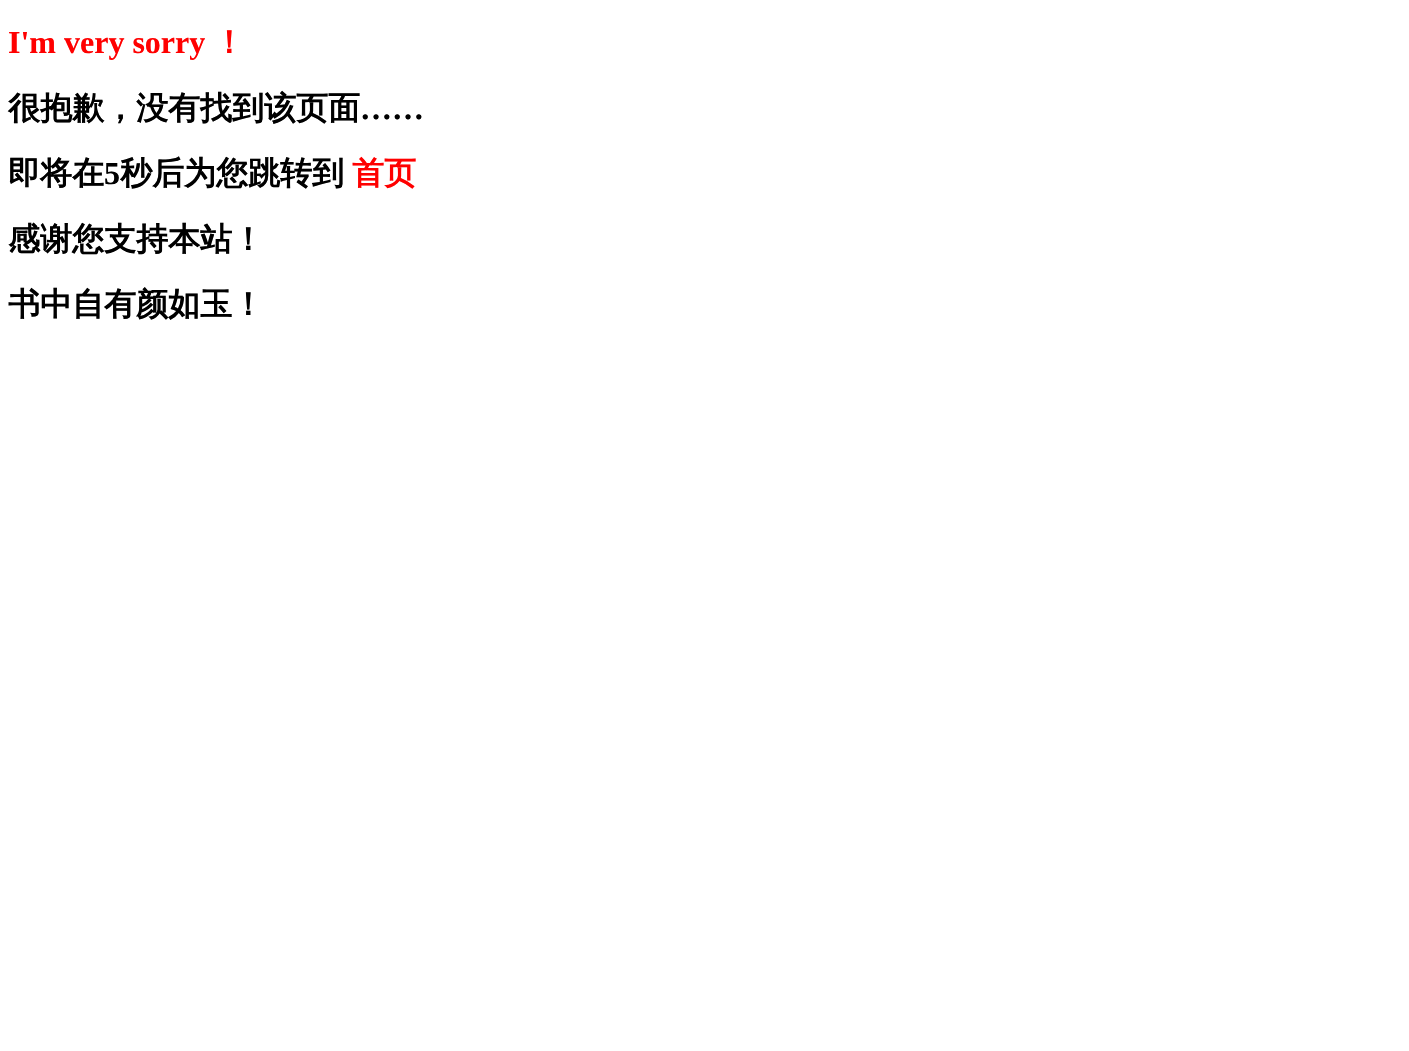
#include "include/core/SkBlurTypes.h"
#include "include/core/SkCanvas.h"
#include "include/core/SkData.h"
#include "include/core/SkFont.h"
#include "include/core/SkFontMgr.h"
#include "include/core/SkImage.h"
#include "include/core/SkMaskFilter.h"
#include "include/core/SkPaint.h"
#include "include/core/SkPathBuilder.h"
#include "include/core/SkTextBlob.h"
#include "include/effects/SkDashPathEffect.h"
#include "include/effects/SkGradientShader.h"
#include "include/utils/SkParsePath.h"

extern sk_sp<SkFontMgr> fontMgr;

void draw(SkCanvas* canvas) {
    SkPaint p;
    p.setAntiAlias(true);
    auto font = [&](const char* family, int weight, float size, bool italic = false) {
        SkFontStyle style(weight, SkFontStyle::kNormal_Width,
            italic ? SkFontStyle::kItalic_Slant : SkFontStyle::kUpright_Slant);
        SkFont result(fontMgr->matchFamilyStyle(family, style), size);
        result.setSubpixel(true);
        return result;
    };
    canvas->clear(0xFFFFFFFF);
    auto font1 = font("Liberation Serif", 700, 32);
    p.setColor(0xFFFF0000);
    canvas->drawString("I'm very sorry", 8, 53, font1, p);
    auto font2 = font("WenQuanYi Zen Hei", 700, 32);
    canvas->drawString("！", 213, 53, font2, p);
    p.setColor(0xFF000000);
    canvas->drawString("很抱歉，没有找到该页面", 8, 119, font2, p);
    canvas->drawString("……", 360, 119, font1, p);
    canvas->drawString("即将在", 8, 184, font2, p);
    canvas->drawString("5", 104, 184, font1, p);
    canvas->drawString("秒后为您跳转到", 120, 184, font2, p);
    p.setColor(0xFFFF0000);
    canvas->drawString("首页", 352, 184, font2, p);
    p.setColor(0xFF000000);
    canvas->drawString("感谢您支持本站！", 8, 250, font2, p);
    canvas->drawString("书中自有颜如玉！", 8, 315, font2, p);
}
